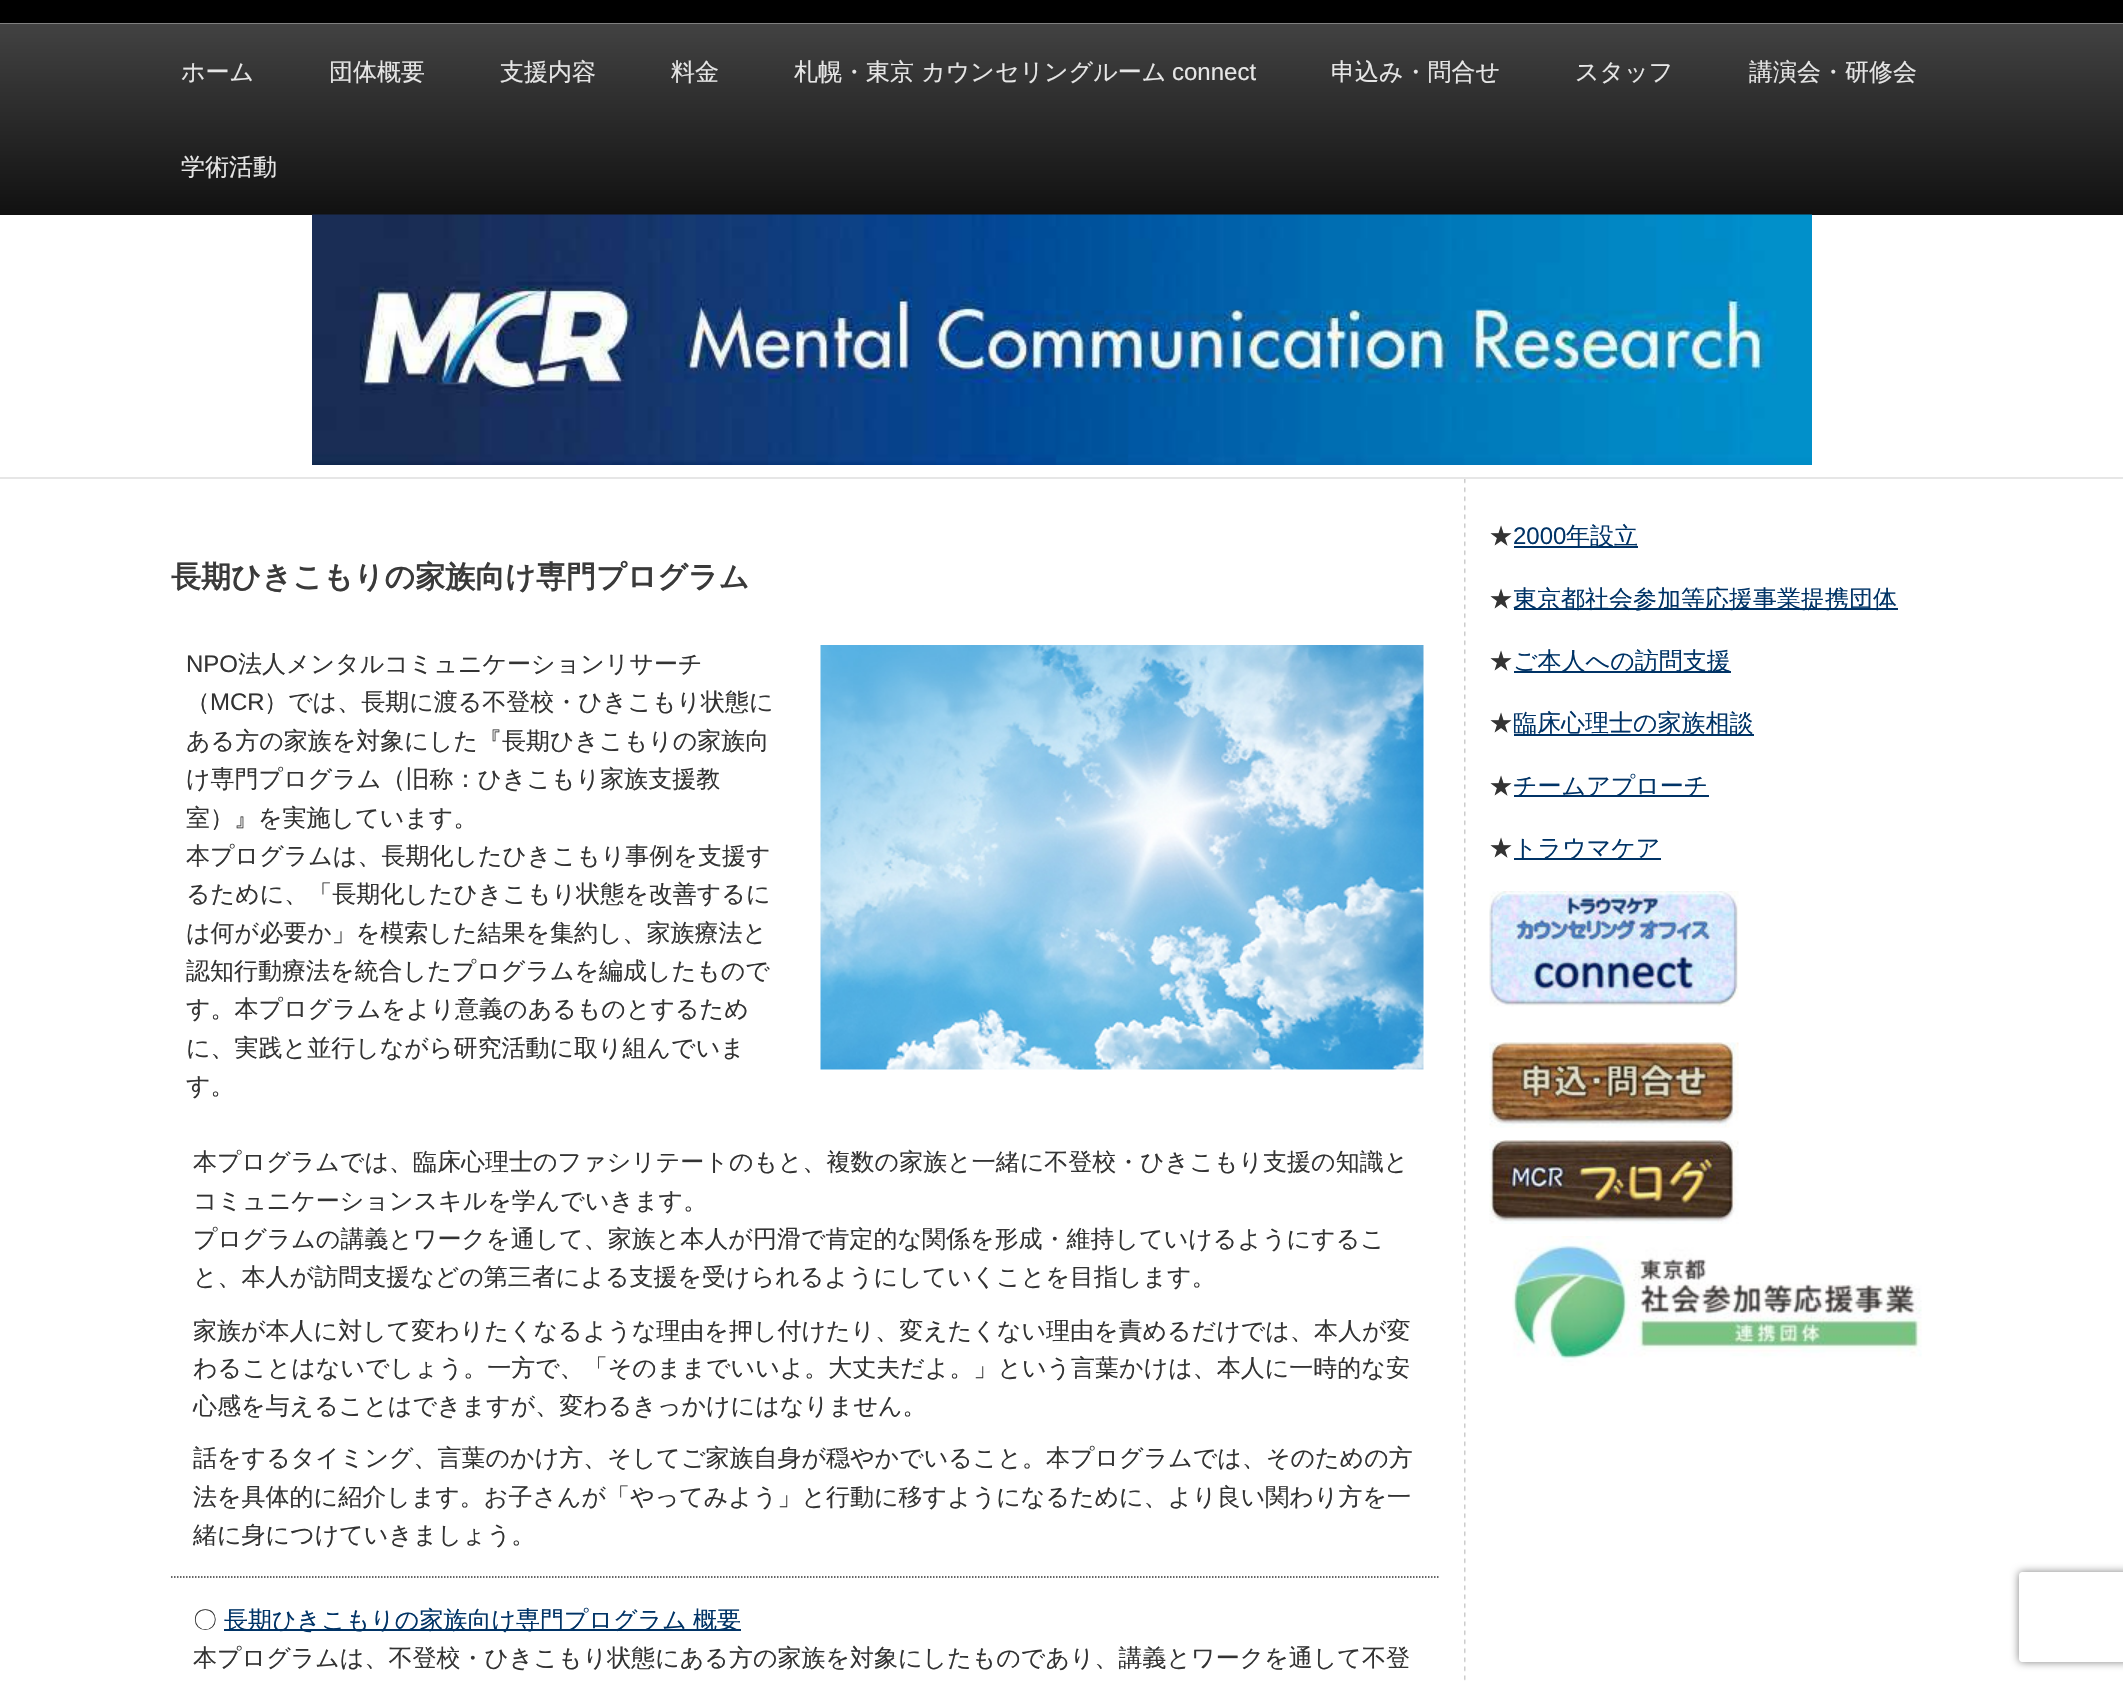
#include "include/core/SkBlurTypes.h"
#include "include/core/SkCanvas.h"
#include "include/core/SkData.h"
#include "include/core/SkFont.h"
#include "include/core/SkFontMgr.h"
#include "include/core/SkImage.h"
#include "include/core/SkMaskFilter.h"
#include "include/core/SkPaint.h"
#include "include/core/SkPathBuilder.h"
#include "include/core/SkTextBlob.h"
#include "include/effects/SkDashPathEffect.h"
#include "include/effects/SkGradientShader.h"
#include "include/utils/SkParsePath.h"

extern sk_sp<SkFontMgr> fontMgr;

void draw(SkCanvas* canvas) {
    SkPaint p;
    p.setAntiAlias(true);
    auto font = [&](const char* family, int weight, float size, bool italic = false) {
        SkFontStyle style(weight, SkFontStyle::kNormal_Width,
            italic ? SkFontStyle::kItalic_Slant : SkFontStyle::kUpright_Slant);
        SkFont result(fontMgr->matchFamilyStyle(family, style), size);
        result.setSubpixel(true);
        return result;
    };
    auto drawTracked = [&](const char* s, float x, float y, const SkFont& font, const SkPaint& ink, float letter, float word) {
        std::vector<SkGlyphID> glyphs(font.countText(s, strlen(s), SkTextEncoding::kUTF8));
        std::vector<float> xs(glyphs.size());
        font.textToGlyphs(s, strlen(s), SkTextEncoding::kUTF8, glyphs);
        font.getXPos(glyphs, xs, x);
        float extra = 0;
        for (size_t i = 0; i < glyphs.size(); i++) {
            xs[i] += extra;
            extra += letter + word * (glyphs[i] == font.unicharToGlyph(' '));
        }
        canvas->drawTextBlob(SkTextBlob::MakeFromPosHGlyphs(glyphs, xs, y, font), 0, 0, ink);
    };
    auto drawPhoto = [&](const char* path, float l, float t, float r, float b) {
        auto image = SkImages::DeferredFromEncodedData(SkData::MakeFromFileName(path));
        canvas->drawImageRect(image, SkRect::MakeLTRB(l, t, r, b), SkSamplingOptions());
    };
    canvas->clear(0xFFFFFFFF);
    p.setColor(0xFF000000);
    canvas->drawRect(SkRect::MakeLTRB(0, 0, 2123, 23), p);
    p.setColor(0xFF808080);
    canvas->drawRect(SkRect::MakeLTRB(0, 23, 2123, 24), p);
    {
        const SkColor colors[] = {0xFF424242, 0xFF111111};
        const float stops[] = {0, 1};
        const SkPoint ends[] = {{1062, 24}, {1062, 215}};
        p.setShader(SkGradientShader::MakeLinear(ends, colors, stops, 2, SkTileMode::kClamp));
        p.setAlpha(255);
    }
    canvas->drawRect(SkRect::MakeLTRB(0, 24, 2123, 215), p);
    auto font1 = font("WenQuanYi Zen Hei", 500, 24);
    p.setShader(nullptr);
    p.setColor(0xFFE6E6E6);
    {
        const struct { const char* s; float x, y; } items[] = {
            {"ホーム", 181, 80},
            {"団体概要", 329, 80},
            {"支援内容", 500, 80},
            {"料金", 671, 80},
            {"札幌・東京 カウンセリングルーム", 794, 80},
        };
        for (auto [s, x, y] : items) {
            canvas->drawString(s, x, y, font1, p);
        }
    }
    auto font2 = font("Liberation Sans", 400, 24);
    canvas->drawString("connect", 1172, 80, font2, p);
    {
        const struct { const char* s; float x, y; } items[] = {
            {"申込み・問合せ", 1331, 80},
            {"スタッフ", 1575, 80},
            {"講演会・研修会", 1749, 80},
            {"学術活動", 181, 175},
        };
        for (auto [s, x, y] : items) {
            canvas->drawString(s, x, y, font1, p);
        }
    }
    canvas->drawRect(SkRect::MakeLTRB(0, 477, 2123, 479), p);
    drawPhoto("media/1.png", 312, 214, 1812, 465);
    drawPhoto("media/2.png", 1464, 479, 1466, 1681);
    auto font3 = font("WenQuanYi Zen Hei", 700, 30);
    p.setColor(0xFF3A3A3A);
    canvas->drawString("長期ひきこもりの家族向け専門プログラム", 171, 587, font3, p);
    p.setColor(0xFF333333);
    canvas->drawString("NPO", 186, 672, font2, p);
    canvas->drawString("法人メンタルコミュニケーションリサーチ", 238, 672, font1, p);
    canvas->drawString("（", 186, 710, font1, p);
    canvas->drawString("MCR", 210, 710, font2, p);
    {
        const struct { const char* s; float x, y; } items[] = {
            {"）では、長期に渡る不登校・ひきこもり状態に", 264, 710},
            {"ある方の家族を対象にした『長期ひきこもりの家族向", 186, 749},
            {"け専門プログラム（旧称：ひきこもり家族支援教", 186, 787},
            {"室）』を実施しています。", 186, 826},
            {"本プログラムは、長期化したひきこもり事例を支援す", 186, 864},
            {"るために、「長期化したひきこもり状態を改善するに", 186, 902},
            {"は何が必要か」を模索した結果を集約し、家族療法と", 186, 941},
            {"認知行動療法を統合したプログラムを編成したもので", 186, 979},
            {"す。本プログラムをより意義のあるものとするため", 186, 1017},
            {"に、実践と並行しながら研究活動に取り組んでいま", 186, 1056},
            {"す。", 186, 1094},
        };
        for (auto [s, x, y] : items) {
            canvas->drawString(s, x, y, font1, p);
        }
    }
    drawPhoto("media/3.png", 820, 645, 1424, 1070);
    p.setStyle(SkPaint::kStroke_Style);
    p.setStrokeWidth(1.5f);
    p.setPathEffect(SkDashPathEffect::Make({{1.5f, 1.5f}}, 0));
    canvas->drawPath(SkPathBuilder().moveTo(171, 1577).lineTo(1438.5f, 1577).detach(), p);
    p.setPathEffect(nullptr);
    p.setStyle(SkPaint::kFill_Style);
    {
        const struct { const char* s; float x, y; } items[] = {
            {"本プログラムでは、臨床心理士のファシリテートのもと、複数の家族と一緒に不登校・ひきこもり支援の知識と", 193, 1170},
            {"コミュニケーションスキルを学んでいきます。", 193, 1209},
            {"プログラムの講義とワークを通して、家族と本人が円滑で肯定的な関係を形成・維持していけるようにするこ", 193, 1247},
            {"と、本人が訪問支援などの第三者による支援を受けられるようにしていくことを目指します。", 193, 1285},
            {"家族が本人に対して変わりたくなるような理由を押し付けたり、変えたくない理由を責めるだけでは、本人が変", 193, 1339},
            {"わることはないでしょう。一方で、「そのままでいいよ。大丈夫だよ。」という言葉かけは、本人に一時的な安", 193, 1376},
            {"心感を与えることはできますが、変わるきっかけにはなりません。", 193, 1414},
            {"話をするタイミング、言葉のかけ方、そしてご家族自身が穏やかでいること。本プログラムでは、そのための方", 193, 1466},
            {"法を具体的に紹介します。お子さんが「やってみよう」と行動に移すようになるために、より良い関わり方を一", 193, 1505},
            {"緒に身につけていきましょう。", 193, 1543},
            {"〇", 193, 1628},
        };
        for (auto [s, x, y] : items) {
            canvas->drawString(s, x, y, font1, p);
        }
    }
    p.setColor(0xFF003366);
    canvas->drawRect(SkRect::MakeLTRB(224, 1629, 741, 1631), p);
    drawTracked("長期ひきこもりの家族向け専門プログラム 概要", 224, 1628, font1, p, 0, -1);
    p.setColor(0xFF333333);
    canvas->drawString("本プログラムは、不登校・ひきこもり状態にある方の家族を対象にしたものであり、講義とワークを通して不登", 193, 1666, font1, p);
    canvas->drawString("★", 1489, 544, font1, p);
    p.setColor(0xFF003366);
    canvas->drawString("2000", 1513, 544, font2, p);
    canvas->drawRect(SkRect::MakeLTRB(1514, 546, 1638, 548), p);
    canvas->drawString("年設立", 1566, 544, font1, p);
    p.setColor(0xFF333333);
    canvas->drawString("★", 1489, 607, font1, p);
    p.setColor(0xFF003366);
    canvas->drawRect(SkRect::MakeLTRB(1514, 608, 1898, 610), p);
    canvas->drawString("東京都社会参加等応援事業提携団体", 1513, 607, font1, p);
    p.setColor(0xFF333333);
    canvas->drawString("★", 1489, 669, font1, p);
    p.setColor(0xFF003366);
    canvas->drawRect(SkRect::MakeLTRB(1514, 671, 1731, 673), p);
    canvas->drawString("ご本人への訪問支援", 1513, 669, font1, p);
    p.setColor(0xFF333333);
    canvas->drawString("★", 1489, 731, font1, p);
    p.setColor(0xFF003366);
    canvas->drawRect(SkRect::MakeLTRB(1514, 734, 1754, 736), p);
    canvas->drawString("臨床心理士の家族相談", 1513, 731, font1, p);
    p.setColor(0xFF333333);
    canvas->drawString("★", 1489, 794, font1, p);
    p.setColor(0xFF003366);
    canvas->drawRect(SkRect::MakeLTRB(1514, 795, 1709, 797), p);
    canvas->drawString("チームアプローチ", 1513, 794, font1, p);
    p.setColor(0xFF333333);
    canvas->drawString("★", 1489, 856, font1, p);
    p.setColor(0xFF003366);
    canvas->drawRect(SkRect::MakeLTRB(1514, 858, 1661, 860), p);
    canvas->drawString("トラウマケア", 1513, 856, font1, p);
    drawPhoto("media/4.png", 1489, 891, 1739, 1007);
    drawPhoto("media/5.png", 1489, 1042, 1739, 1128);
    drawPhoto("media/6.png", 1489, 1140, 1739, 1224);
    drawPhoto("media/7.png", 1512, 1236, 1922, 1366);
    canvas->save();
    canvas->clipPath(SkPathBuilder(SkPathFillType::kEvenOdd).moveTo(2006, 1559).lineTo(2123, 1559).lineTo(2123, 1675).lineTo(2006, 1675).close().moveTo(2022, 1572).lineTo(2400, 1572).cubicTo(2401.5f, 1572, 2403, 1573.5f, 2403, 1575).lineTo(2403, 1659).cubicTo(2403, 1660.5f, 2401.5f, 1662, 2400, 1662).lineTo(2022, 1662).cubicTo(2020.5f, 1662, 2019, 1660.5f, 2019, 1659).lineTo(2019, 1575).cubicTo(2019, 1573.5f, 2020.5f, 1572, 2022, 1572).close().detach(), true);
    p.setColor(0xFF808080);
    p.setMaskFilter(SkMaskFilter::MakeBlur(kNormal_SkBlurStyle, 4));
    canvas->drawRoundRect(SkRect::MakeLTRB(2019, 1572, 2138, 1662), 3, 3, p);
    p.setMaskFilter(nullptr);
    canvas->restore();
}
